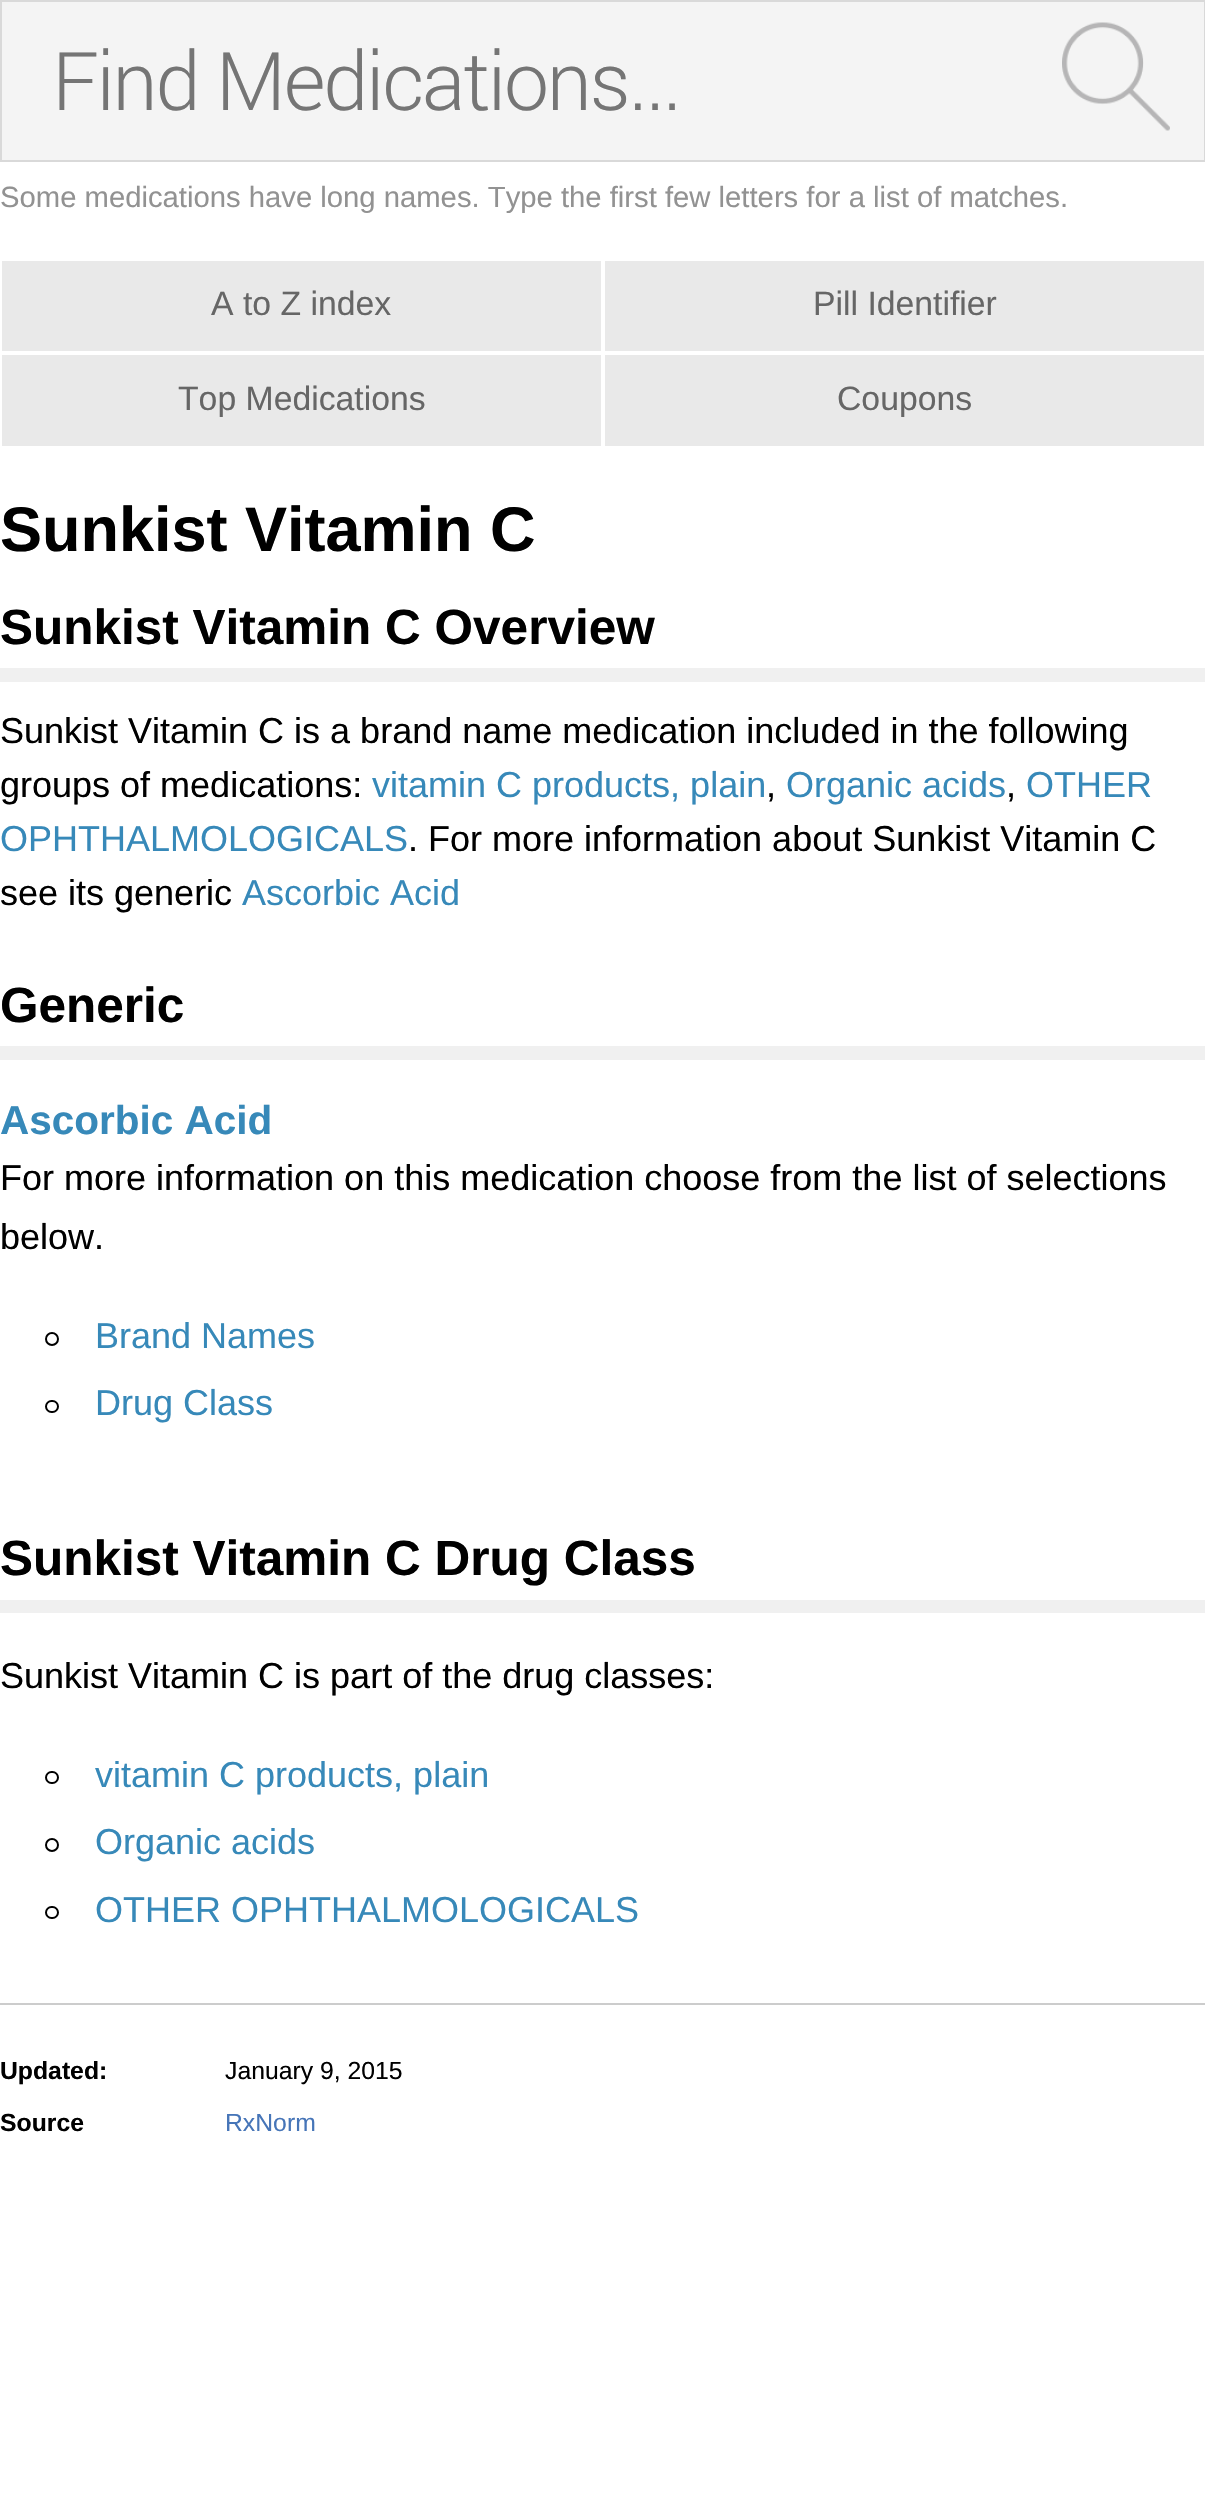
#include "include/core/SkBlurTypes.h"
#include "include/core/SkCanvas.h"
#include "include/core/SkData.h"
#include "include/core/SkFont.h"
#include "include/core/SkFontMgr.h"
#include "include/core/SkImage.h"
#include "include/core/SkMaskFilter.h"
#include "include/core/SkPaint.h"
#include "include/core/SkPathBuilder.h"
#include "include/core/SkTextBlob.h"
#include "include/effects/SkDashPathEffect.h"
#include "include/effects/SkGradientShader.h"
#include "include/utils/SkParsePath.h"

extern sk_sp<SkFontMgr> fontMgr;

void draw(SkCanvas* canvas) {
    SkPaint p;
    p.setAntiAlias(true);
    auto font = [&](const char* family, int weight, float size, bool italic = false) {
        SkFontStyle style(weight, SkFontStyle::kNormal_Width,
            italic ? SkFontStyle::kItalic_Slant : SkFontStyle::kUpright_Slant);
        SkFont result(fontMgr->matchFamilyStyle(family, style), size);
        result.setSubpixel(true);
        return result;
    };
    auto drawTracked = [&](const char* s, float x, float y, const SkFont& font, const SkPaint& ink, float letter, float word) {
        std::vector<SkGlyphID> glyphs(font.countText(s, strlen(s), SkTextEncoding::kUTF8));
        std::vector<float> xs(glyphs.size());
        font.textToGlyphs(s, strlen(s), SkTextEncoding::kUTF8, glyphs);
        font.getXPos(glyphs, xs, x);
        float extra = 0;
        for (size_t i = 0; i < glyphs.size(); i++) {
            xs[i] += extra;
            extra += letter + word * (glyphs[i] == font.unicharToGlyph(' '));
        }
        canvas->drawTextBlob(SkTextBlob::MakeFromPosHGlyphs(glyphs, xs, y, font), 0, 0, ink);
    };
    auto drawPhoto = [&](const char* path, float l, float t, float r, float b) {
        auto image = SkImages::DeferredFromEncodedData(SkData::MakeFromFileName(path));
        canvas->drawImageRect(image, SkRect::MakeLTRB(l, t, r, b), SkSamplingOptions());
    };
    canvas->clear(0xFFFFFFFF);
    p.setColor(0xFFF4F4F4);
    canvas->drawRect(SkRect::MakeLTRB(1, 1, 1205, 161), p);
    p.setStyle(SkPaint::kStroke_Style);
    p.setStrokeWidth(2);
    p.setColor(0xFFD9D9D9);
    canvas->drawRect(SkRect::MakeLTRB(1, 1, 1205, 161), p);
    auto font1 = font("Roboto", 300, 81);
    p.setStyle(SkPaint::kFill_Style);
    p.setColor(0xFF757575);
    drawTracked("Find Medications...", 52, 110, font1, p, -2.25f, 0);
    drawPhoto("media/1.png", 1062, 22, 1170, 131);
    auto font2 = font("Liberation Sans", 400, 29.25f);
    p.setColor(0xFF929292);
    canvas->drawString("Some medications have long names. Type the first few letters for a list of matches.", 0, 207, font2, p);
    p.setColor(0xFFE9E9E9);
    canvas->drawRect(SkRect::MakeLTRB(2, 261, 601, 351), p);
    auto font3 = font("Liberation Sans", 400, 33.75f);
    p.setColor(0xFF666666);
    canvas->drawString("A to Z index", 211, 315, font3, p);
    p.setColor(0xFFE9E9E9);
    canvas->drawRect(SkRect::MakeLTRB(605, 261, 1204, 351), p);
    p.setColor(0xFF666666);
    canvas->drawString("Pill Identifier", 813, 315, font3, p);
    p.setColor(0xFFE9E9E9);
    canvas->drawRect(SkRect::MakeLTRB(2, 355, 601, 446), p);
    p.setColor(0xFF666666);
    canvas->drawString("Top Medications", 178, 410, font3, p);
    p.setColor(0xFFE9E9E9);
    canvas->drawRect(SkRect::MakeLTRB(605, 355, 1204, 446), p);
    p.setColor(0xFF666666);
    canvas->drawString("Coupons", 837, 410, font3, p);
    auto font4 = font("Liberation Sans", 700, 63);
    p.setColor(0xFF000000);
    canvas->drawString("Sunkist Vitamin C", 0, 551, font4, p);
    p.setColor(0xFFF0F0F0);
    canvas->drawRect(SkRect::MakeLTRB(0, 668, 1205, 682), p);
    auto font5 = font("Liberation Sans", 700, 49.5f);
    p.setColor(0xFF000000);
    canvas->drawString("Sunkist Vitamin C Overview", 0, 644, font5, p);
    auto font6 = font("Liberation Sans", 400, 36);
    canvas->drawString("Sunkist Vitamin C is a brand name medication included in the following", 0, 743, font6, p);
    canvas->drawString("groups of medications:", 0, 797, font6, p);
    p.setColor(0xFF3789B9);
    canvas->drawString("vitamin C products, plain", 372, 797, font6, p);
    p.setColor(0xFF000000);
    canvas->drawString(",", 766, 797, font6, p);
    p.setColor(0xFF3789B9);
    canvas->drawString("Organic acids", 786, 797, font6, p);
    p.setColor(0xFF000000);
    canvas->drawString(",", 1006, 797, font6, p);
    p.setColor(0xFF3789B9);
    canvas->drawString("OTHER", 1026, 797, font6, p);
    canvas->drawString("OPHTHALMOLOGICALS", 0, 851, font6, p);
    p.setColor(0xFF000000);
    canvas->drawString(". For more information about Sunkist Vitamin C", 408, 851, font6, p);
    canvas->drawString("see its generic", 0, 905, font6, p);
    p.setColor(0xFF3789B9);
    canvas->drawString("Ascorbic Acid", 242, 905, font6, p);
    p.setColor(0xFFF0F0F0);
    canvas->drawRect(SkRect::MakeLTRB(0, 1046, 1205, 1060), p);
    p.setColor(0xFF000000);
    canvas->drawString("Generic", 0, 1022, font5, p);
    auto font7 = font("Liberation Sans", 700, 40.5f);
    p.setColor(0xFF3789B9);
    canvas->drawString("Ascorbic Acid", 0, 1134, font7, p);
    p.setColor(0xFF000000);
    canvas->drawString("For more information on this medication choose from the list of selections", 0, 1190, font6, p);
    canvas->drawString("below.", 0, 1249, font6, p);
    p.setStyle(SkPaint::kStroke_Style);
    canvas->drawCircle(52, 1339, 6, p);
    p.setStyle(SkPaint::kFill_Style);
    p.setColor(0xFF3789B9);
    canvas->drawString("Brand Names", 95, 1348, font6, p);
    p.setStyle(SkPaint::kStroke_Style);
    p.setColor(0xFF000000);
    canvas->drawRoundRect(SkRect::MakeLTRB(46, 1401, 58, 1412), 5.5f, 5.5f, p);
    p.setStyle(SkPaint::kFill_Style);
    p.setColor(0xFF3789B9);
    canvas->drawString("Drug Class", 95, 1415, font6, p);
    p.setColor(0xFFF0F0F0);
    canvas->drawRect(SkRect::MakeLTRB(0, 1600, 1205, 1613), p);
    p.setColor(0xFF000000);
    canvas->drawString("Sunkist Vitamin C Drug Class", 0, 1575, font5, p);
    canvas->drawString("Sunkist Vitamin C is part of the drug classes:", 0, 1688, font6, p);
    p.setStyle(SkPaint::kStroke_Style);
    canvas->drawRoundRect(SkRect::MakeLTRB(46, 1772, 58, 1783), 5.5f, 5.5f, p);
    p.setStyle(SkPaint::kFill_Style);
    p.setColor(0xFF3789B9);
    canvas->drawString("vitamin C products, plain", 95, 1787, font6, p);
    p.setStyle(SkPaint::kStroke_Style);
    p.setColor(0xFF000000);
    canvas->drawCircle(52, 1845, 6, p);
    p.setStyle(SkPaint::kFill_Style);
    p.setColor(0xFF3789B9);
    canvas->drawString("Organic acids", 95, 1854, font6, p);
    p.setStyle(SkPaint::kStroke_Style);
    p.setColor(0xFF000000);
    canvas->drawRoundRect(SkRect::MakeLTRB(46, 1907, 58, 1918), 5.5f, 5.5f, p);
    p.setStyle(SkPaint::kFill_Style);
    p.setColor(0xFF3789B9);
    canvas->drawString("OTHER OPHTHALMOLOGICALS", 95, 1922, font6, p);
    p.setColor(0xFFCCCCCC);
    canvas->drawRect(SkRect::MakeLTRB(0, 2003, 1205, 2005), p);
    auto font8 = font("Liberation Sans", 700, 24.75f);
    p.setColor(0xFF000000);
    canvas->drawString("Updated:", 0, 2079, font8, p);
    auto font9 = font("Liberation Sans", 400, 24.75f);
    canvas->drawString("January 9, 2015", 225, 2079, font9, p);
    canvas->drawString("Source", 0, 2131, font8, p);
    p.setColor(0xFF4675B8);
    canvas->drawString("RxNorm", 225, 2131, font9, p);
}
